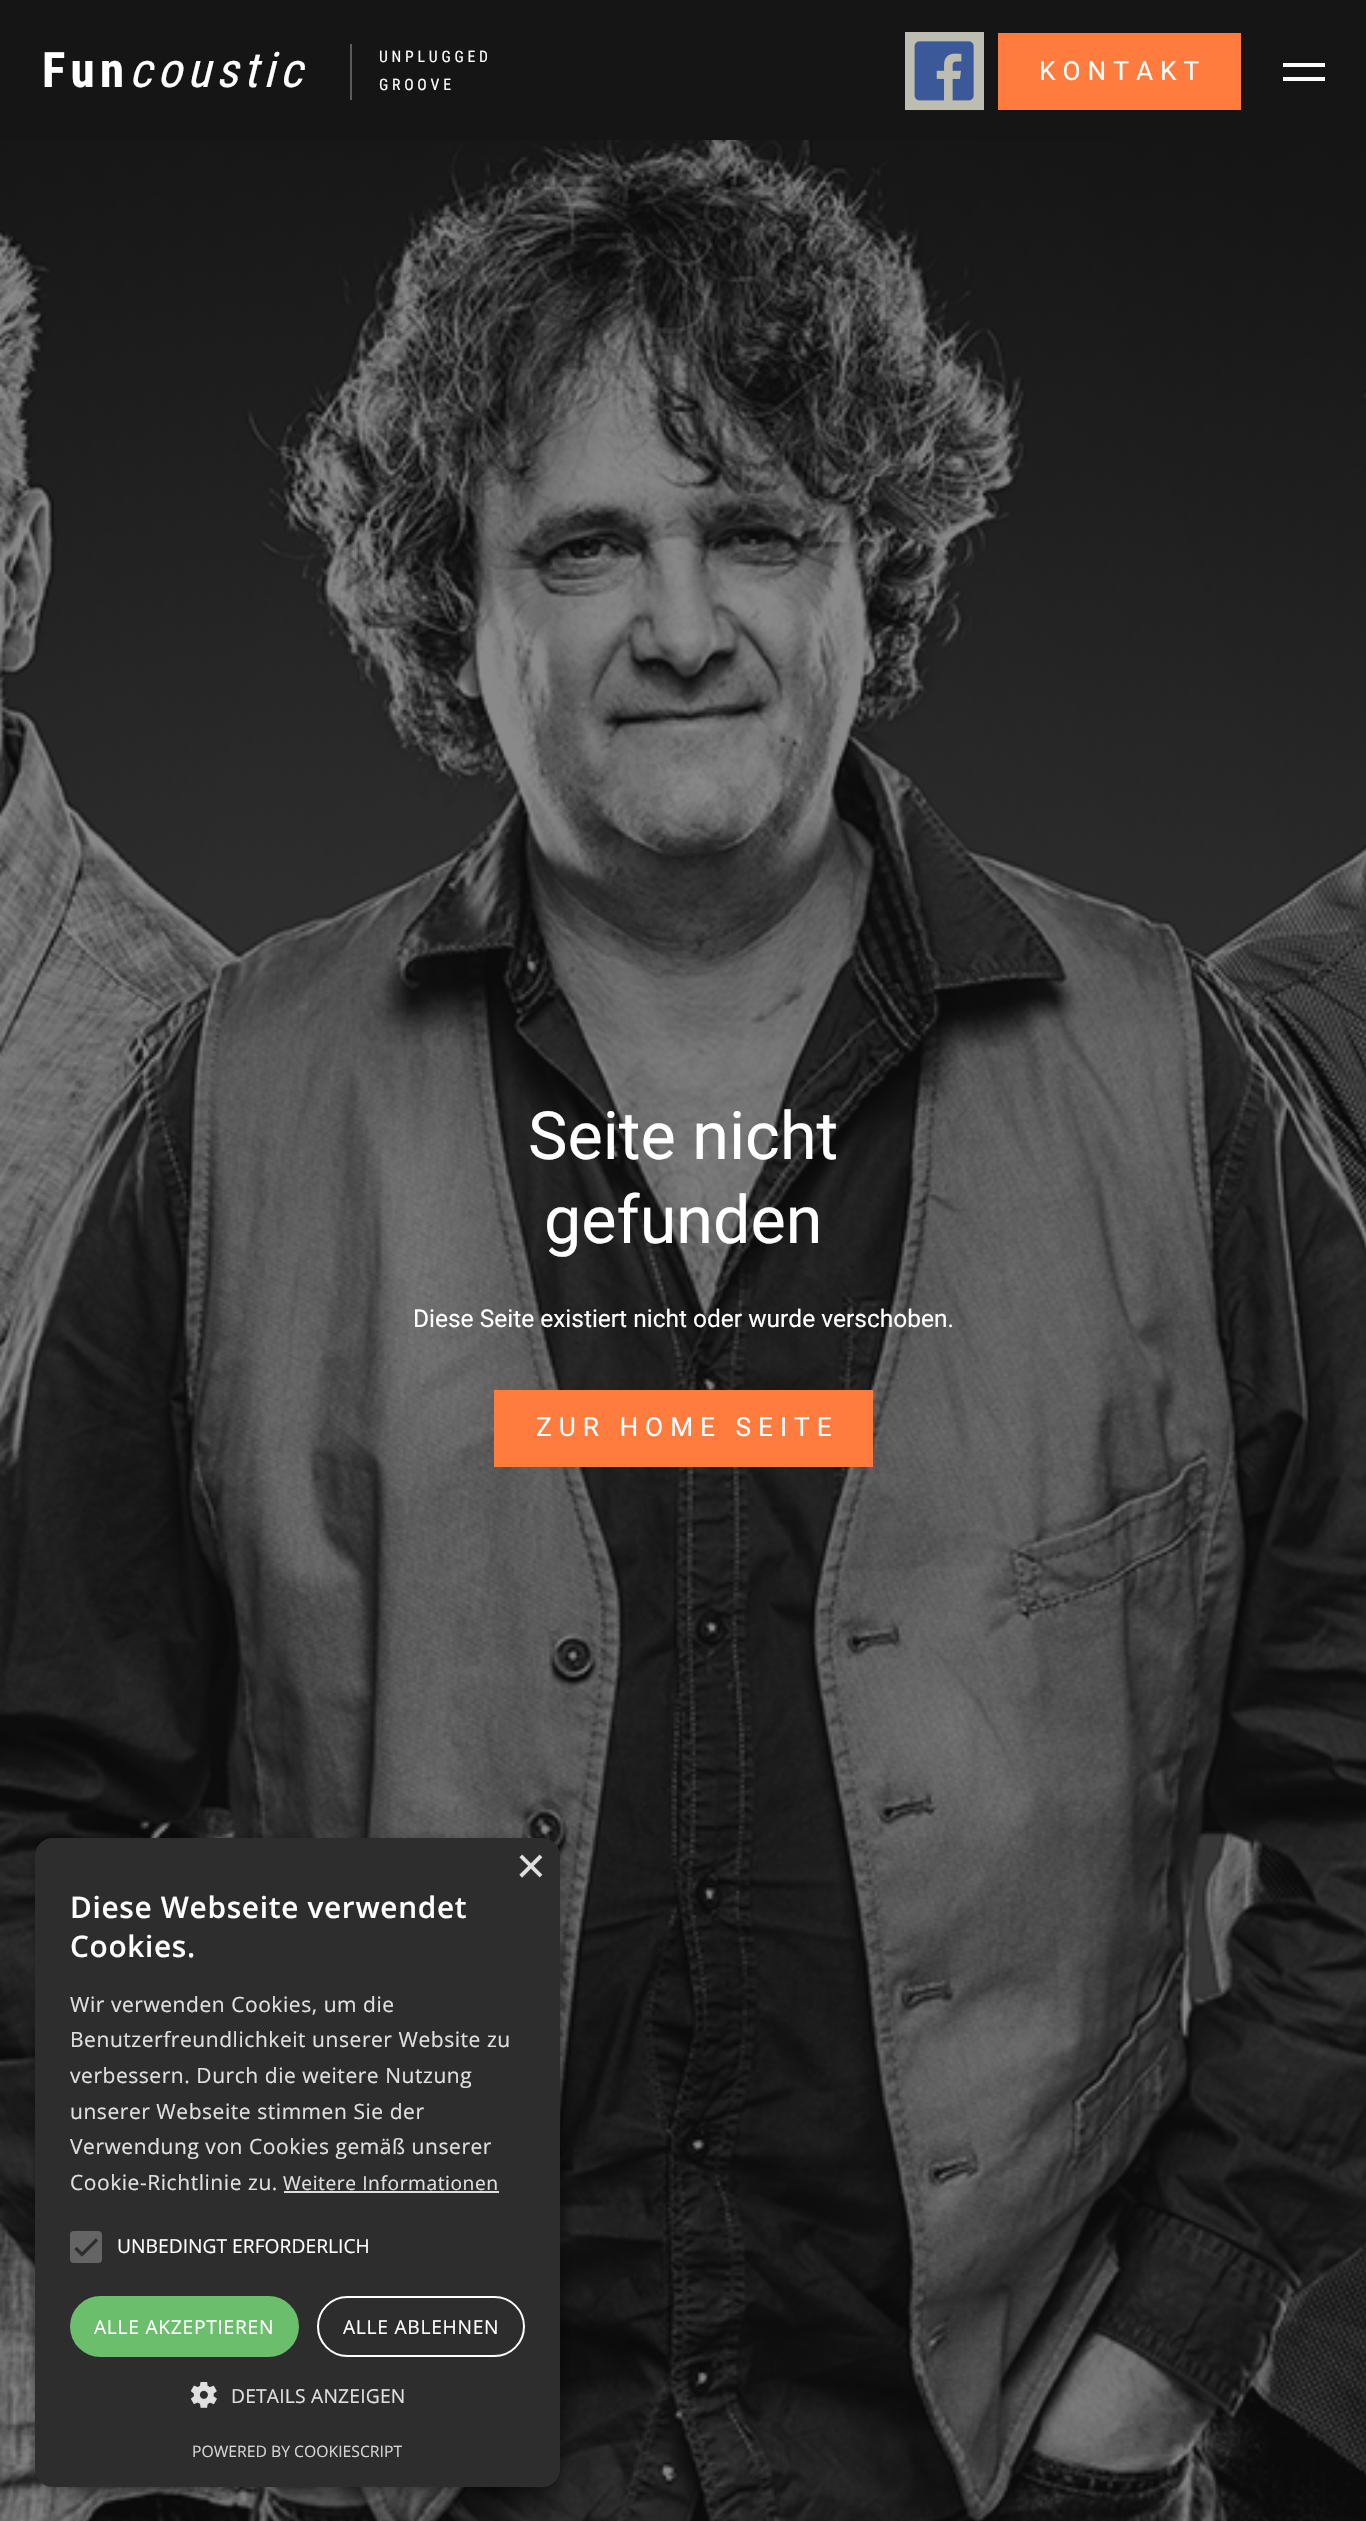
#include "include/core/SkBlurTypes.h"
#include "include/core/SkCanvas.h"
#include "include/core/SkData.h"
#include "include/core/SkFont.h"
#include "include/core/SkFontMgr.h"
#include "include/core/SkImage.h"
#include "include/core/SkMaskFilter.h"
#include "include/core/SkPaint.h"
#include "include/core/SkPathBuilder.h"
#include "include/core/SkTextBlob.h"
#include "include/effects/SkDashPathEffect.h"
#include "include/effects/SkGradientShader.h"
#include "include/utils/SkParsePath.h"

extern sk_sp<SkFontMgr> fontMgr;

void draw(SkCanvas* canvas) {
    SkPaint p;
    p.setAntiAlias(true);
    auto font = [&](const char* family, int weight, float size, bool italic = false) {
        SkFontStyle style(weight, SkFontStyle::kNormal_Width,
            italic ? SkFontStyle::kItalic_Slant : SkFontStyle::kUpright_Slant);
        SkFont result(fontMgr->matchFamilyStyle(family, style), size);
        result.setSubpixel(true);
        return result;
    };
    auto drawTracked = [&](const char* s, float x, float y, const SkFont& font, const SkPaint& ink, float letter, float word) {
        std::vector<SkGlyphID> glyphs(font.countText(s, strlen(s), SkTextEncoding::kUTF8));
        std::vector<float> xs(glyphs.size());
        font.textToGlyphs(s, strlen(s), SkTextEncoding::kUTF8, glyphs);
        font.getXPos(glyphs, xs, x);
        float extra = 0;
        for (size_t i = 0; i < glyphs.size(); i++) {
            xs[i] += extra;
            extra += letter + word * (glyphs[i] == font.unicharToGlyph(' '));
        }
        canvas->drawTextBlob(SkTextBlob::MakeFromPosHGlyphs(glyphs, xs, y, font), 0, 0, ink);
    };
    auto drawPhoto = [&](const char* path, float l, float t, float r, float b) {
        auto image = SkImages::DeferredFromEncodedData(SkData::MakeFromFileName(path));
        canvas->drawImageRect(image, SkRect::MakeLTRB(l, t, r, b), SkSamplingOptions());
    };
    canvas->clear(0xFFFFFFFF);
    p.setColor(0xFF151515);
    canvas->drawRect(SkRect::MakeLTRB(0, 2, 1366, 140), p);
    p.setColor(0xFF151617);
    canvas->drawRect(SkRect::MakeLTRB(0, 0, 1366, 2), p);
    auto font1 = font("Roboto Condensed", 700, 49);
    p.setColor(0xFFFFFFFF);
    drawTracked("Fun", 42, 87, font1, p, 5.25f, 0);
    auto font2 = font("Roboto Condensed", 400, 49, true);
    drawTracked("coustic", 129, 87, font2, p, 5.25f, 0);
    p.setColor(0xFF5B5B5B);
    canvas->drawRect(SkRect::MakeLTRB(350, 44, 352, 100), p);
    auto font3 = font("Roboto Condensed", 400, 15.75f);
    p.setColor(0xFFFFFFFF);
    drawTracked("UNPLUGGED", 379, 62, font3, p, 3.75f, 0);
    drawTracked("GROOVE", 379, 90, font3, p, 3.75f, 0);
    p.setColor(0xFFBEBDB1);
    canvas->drawRect(SkRect::MakeLTRB(905, 32, 984, 110), p);
    drawPhoto("media/1.png", 914, 41, 974, 101);
    p.setColor(0xFFFF7B3E);
    canvas->drawRect(SkRect::MakeLTRB(998, 33, 1241, 110), p);
    auto font4 = font("Roboto", 400, 26.25f);
    p.setColor(0xFFFFFFFF);
    drawTracked("KONTAKT", 1039, 80, font4, p, 7, 0);
    canvas->drawRect(SkRect::MakeLTRB(1283, 63, 1325, 67), p);
    canvas->drawRect(SkRect::MakeLTRB(1283, 77, 1325, 81), p);
    drawPhoto("media/2.png", 0, 140, 1366, 2521);
    auto font5 = font("Roboto", 400, 66.5f);
    canvas->drawString("Seite nicht", 528, 1159, font5, p);
    canvas->drawString("gefunden", 544, 1243, font5, p);
    auto font6 = font("Roboto", 400, 24.5f);
    canvas->drawString("Diese Seite existiert nicht oder wurde verschoben.", 413, 1327, font6, p);
    p.setColor(0xFFFF7B3E);
    canvas->drawRect(SkRect::MakeLTRB(494, 1390, 873, 1467), p);
    p.setColor(0xFFFFFFFF);
    drawTracked("ZUR HOME SEITE", 536, 1436, font4, p, 7, 0);
    p.setColor(0x59000000);
    p.setMaskFilter(SkMaskFilter::MakeBlur(kNormal_SkBlurStyle, 7));
    canvas->drawRoundRect(SkRect::MakeLTRB(37, 1841, 562, 2490), 18, 18, p);
    p.setMaskFilter(nullptr);
    p.setColor(0xFF2D2D2D);
    canvas->drawRoundRect(SkRect::MakeLTRB(35, 1838, 560, 2487), 18, 18, p);
    auto font7 = font("Liberation Sans", 400, 51);
    p.setColor(0xFFE0E0E0);
    canvas->drawString("×", 516, 1883, font7, p);
    auto font8 = font("Open Sans", 600, 29.75f);
    p.setColor(0xFFFFFFFF);
    drawTracked("Diese Webseite verwendet", 70, 1918, font8, p, 0.7f, 0);
    drawTracked("Cookies.", 70, 1957, font8, p, 0.7f, 0);
    auto font9 = font("Open Sans", 400, 21);
    p.setColor(0xFFE0E0E0);
    {
        const struct { const char* s; float x, y; } items[] = {
            {"Wir verwenden Cookies, um die", 70, 2012},
            {"Benutzerfreundlichkeit unserer Website zu", 70, 2047},
            {"verbessern. Durch die weitere Nutzung", 70, 2083},
            {"unserer Webseite stimmen Sie der", 70, 2119},
            {"Verwendung von Cookies gemäß unserer", 70, 2154},
            {"Cookie-Richtlinie zu.", 70, 2190},
        };
        for (auto [s, x, y] : items) {
            drawTracked(s, x, y, font9, p, 0.55f, 0);
        }
    }
    auto font10 = font("Open Sans", 400, 19.25f);
    drawTracked("Weitere Informationen", 283, 2190, font10, p, 0.55f, 0);
    canvas->drawRect(SkRect::MakeLTRB(284, 2191, 499, 2193), p);
    p.setColor(0xFF646464);
    canvas->drawRoundRect(SkRect::MakeLTRB(70, 2231, 102, 2263), 4, 4, p);
    p.setStyle(SkPaint::kStroke_Style);
    p.setStrokeWidth(3.2f);
    p.setColor(0xFF2D2D2D);
    canvas->drawPath(SkPathBuilder().moveTo(75.5f, 2248).lineTo(82, 2254.5f).lineTo(97, 2239.5f).detach(), p);
    p.setStyle(SkPaint::kFill_Style);
    p.setColor(0xFFFFFFFF);
    canvas->drawString("UNBEDINGT ERFORDERLICH", 117, 2253, font10, p);
    p.setColor(0xFF6BBE6B);
    canvas->drawRoundRect(SkRect::MakeLTRB(70, 2296, 299, 2357), 30.5f, 30.5f, p);
    p.setColor(0xFFFFFFFF);
    drawTracked("ALLE AKZEPTIEREN", 94, 2334, font10, p, 0.7f, 0);
    p.setStyle(SkPaint::kStroke_Style);
    p.setStrokeWidth(2);
    canvas->drawRoundRect(SkRect::MakeLTRB(318, 2297, 524, 2356), 29.5f, 29.5f, p);
    p.setStyle(SkPaint::kFill_Style);
    drawTracked("ALLE ABLEHNEN", 343, 2334, font10, p, 0.7f, 0);
    drawPhoto("media/3.png", 191, 2382, 217, 2408);
    p.setColor(0xFFE0E0E0);
    drawTracked("DETAILS ANZEIGEN", 231, 2403, font10, p, 0.2f, 0);
    auto font11 = font("Open Sans", 400, 15.75f);
    p.setColor(0xFFD5D5D5);
    canvas->drawString("POWERED BY COOKIESCRIPT", 192, 2457, font11, p);
}
